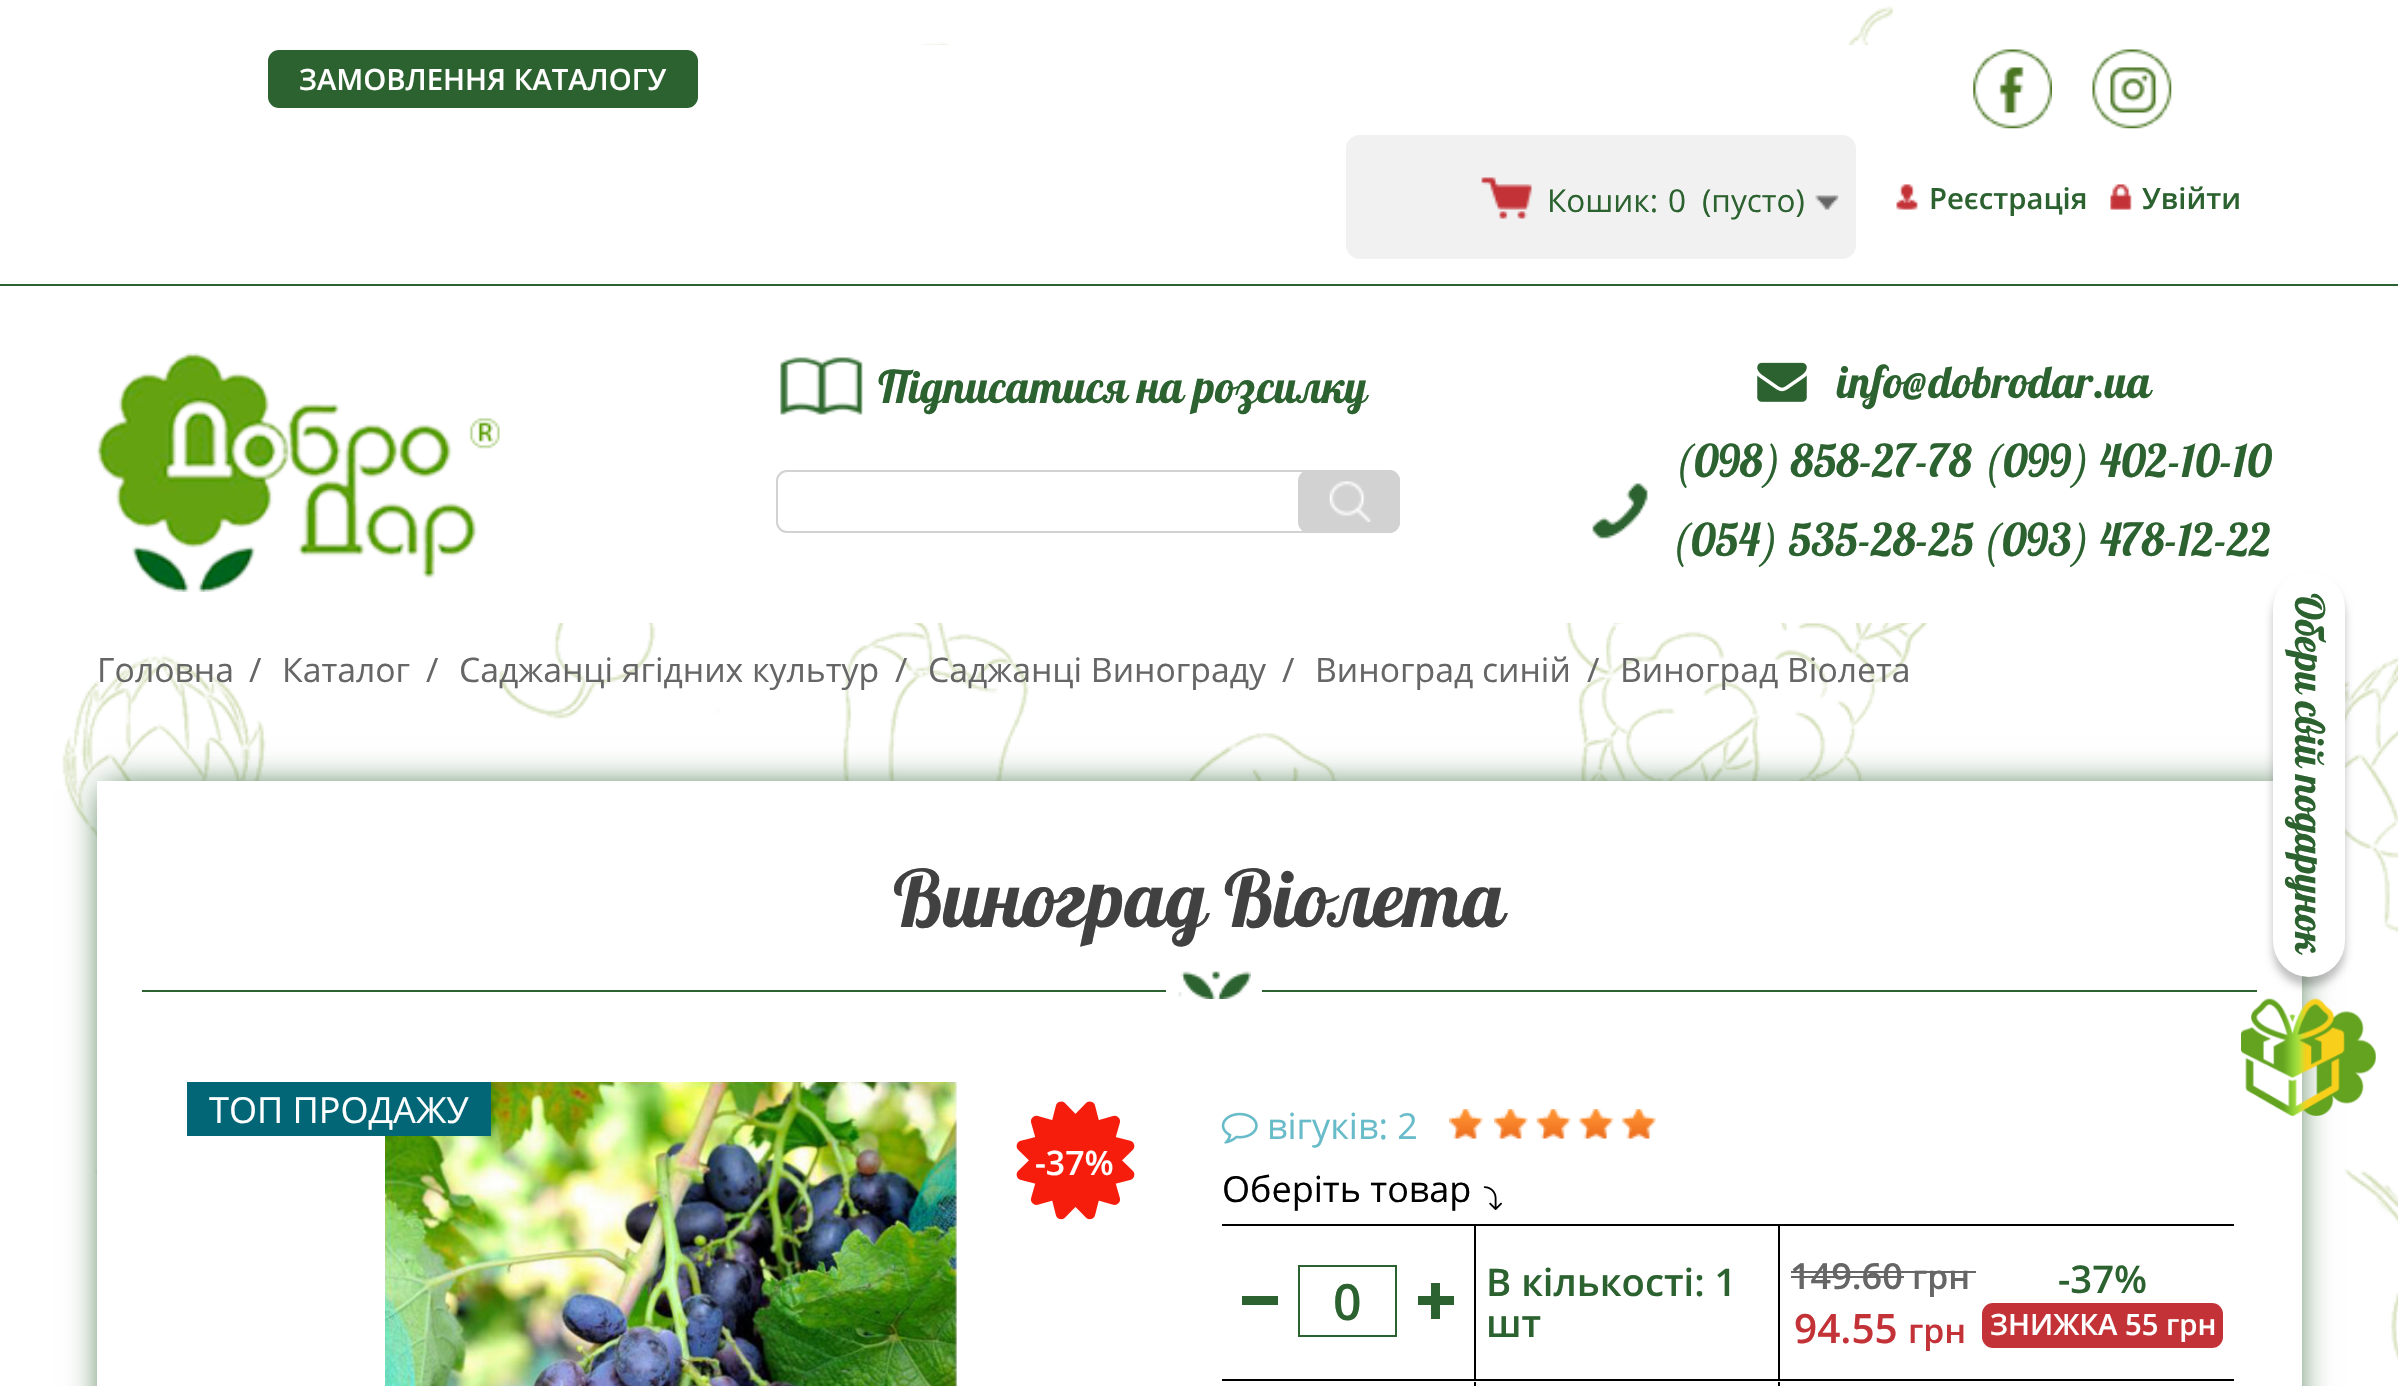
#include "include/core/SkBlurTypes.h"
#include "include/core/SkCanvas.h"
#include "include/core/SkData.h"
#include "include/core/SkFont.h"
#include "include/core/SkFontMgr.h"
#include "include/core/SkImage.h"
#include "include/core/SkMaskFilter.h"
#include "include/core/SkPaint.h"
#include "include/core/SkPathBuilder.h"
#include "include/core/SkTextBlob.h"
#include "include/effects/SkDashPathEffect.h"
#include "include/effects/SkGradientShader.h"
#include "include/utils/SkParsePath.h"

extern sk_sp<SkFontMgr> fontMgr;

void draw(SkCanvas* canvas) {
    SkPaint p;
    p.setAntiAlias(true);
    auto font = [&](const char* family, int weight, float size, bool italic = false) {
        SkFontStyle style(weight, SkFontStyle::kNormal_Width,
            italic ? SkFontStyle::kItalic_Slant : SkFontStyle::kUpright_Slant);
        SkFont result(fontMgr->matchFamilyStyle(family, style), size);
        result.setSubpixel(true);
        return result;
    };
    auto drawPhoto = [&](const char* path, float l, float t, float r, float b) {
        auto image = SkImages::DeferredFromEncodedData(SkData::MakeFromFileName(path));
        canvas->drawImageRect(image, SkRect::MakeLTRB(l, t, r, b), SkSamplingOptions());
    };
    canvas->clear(0xFFFFFFFF);
    drawPhoto("media/1.png", 46, 6, 2398, 1386);
    p.setColor(0xFFFFFFFF);
    canvas->drawRect(SkRect::MakeLTRB(46, 45, 2398, 623), p);
    p.setColor(0xFF2B622F);
    canvas->drawRect(SkRect::MakeLTRB(0, 284, 2398, 286), p);
    canvas->drawRoundRect(SkRect::MakeLTRB(268, 50, 698, 108), 11, 11, p);
    auto font1 = font("Open Sans", 600, 29.25f);
    p.setColor(0xFFFFFFFF);
    canvas->drawString("ЗАМОВЛЕННЯ КАТАЛОГУ", 299, 90, font1, p);
    drawPhoto("media/2.png", 1973, 49, 2052, 129);
    drawPhoto("media/3.png", 2092, 49, 2172, 129);
    p.setColor(0xFFF1F1F1);
    canvas->drawRoundRect(SkRect::MakeLTRB(1346, 135, 1856, 259), 14, 14, p);
    drawPhoto("media/4.png", 1481, 177, 1532, 219);
    auto font2 = font("Open Sans", 400, 31.5f);
    p.setColor(0xFF2B622F);
    {
        const struct { const char* s; float x, y; } items[] = {
            {"Кошик:", 1547, 212},
            {"0", 1668, 212},
            {"(пусто)", 1702, 212},
        };
        for (auto [s, x, y] : items) {
            canvas->drawString(s, x, y, font2, p);
        }
    }
    drawPhoto("media/5.png", 1815, 195, 1839, 210);
    drawPhoto("media/6.png", 1896, 184, 1918, 210);
    canvas->drawString("Реєстрація", 1929, 209, font1, p);
    drawPhoto("media/7.png", 2110, 184, 2132, 210);
    canvas->drawString("Увійти", 2142, 209, font1, p);
    drawPhoto("media/8.png", 96, 353, 500, 592);
    drawPhoto("media/9.png", 780, 357, 863, 415);
    auto font3 = font("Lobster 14", 400, 45);
    canvas->drawString("Підписатися на розсилку", 878, 403, font3, p);
    p.setStyle(SkPaint::kStroke_Style);
    p.setStrokeWidth(2);
    p.setColor(0xFFD2D2D2);
    canvas->drawRoundRect(SkRect::MakeLTRB(777, 471, 1399, 532), 10, 10, p);
    p.setStyle(SkPaint::kFill_Style);
    canvas->drawRoundRect(SkRect::MakeLTRB(1298, 470, 1400, 533), 11, 11, p);
    drawPhoto("media/10.png", 1329, 481, 1371, 522);
    drawPhoto("media/11.png", 1757, 362, 1807, 402);
    p.setColor(0xFF2B622F);
    canvas->drawString("info@dobrodar.ua", 1837, 398, font3, p);
    drawPhoto("media/12.png", 1592, 483, 1648, 539);
    {
        const struct { const char* s; float x, y; } items[] = {
            {"(098) 858-27-78", 1674, 477},
            {"(099) 402-10-10", 1983, 477},
            {"(054) 535-28-25", 1671, 556},
            {"(093) 478-12-22", 1982, 556},
        };
        for (auto [s, x, y] : items) {
            canvas->drawString(s, x, y, font3, p);
        }
    }
    auto font4 = font("Open Sans", 400, 33.75f);
    p.setColor(0xFF666666);
    {
        const struct { const char* s; float x, y; } items[] = {
            {"Головна", 97, 682},
            {"/", 249, 682},
            {"Каталог", 282, 682},
            {"/", 426, 682},
            {"Саджанці ягідних культур", 459, 682},
            {"/", 895, 682},
            {"Саджанці Винограду", 928, 682},
            {"/", 1282, 682},
            {"Виноград синій", 1315, 682},
            {"/", 1587, 682},
            {"Виноград Віолета", 1620, 682},
        };
        for (auto [s, x, y] : items) {
            canvas->drawString(s, x, y, font4, p);
        }
    }
    p.setColor(0xFF2B622F);
    p.setMaskFilter(SkMaskFilter::MakeBlur(kNormal_SkBlurStyle, 17));
    canvas->drawRect(SkRect::MakeLTRB(104, 788, 2295, 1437), p);
    p.setMaskFilter(nullptr);
    p.setColor(0xFFFFFFFF);
    canvas->drawRect(SkRect::MakeLTRB(97, 781, 2302, 1386), p);
    auto font5 = font("Lobster 14", 400, 78.75f);
    p.setColor(0xFF414141);
    canvas->drawString("Виноград Віолета", 893, 927, font5, p);
    p.setColor(0xFF2B622F);
    canvas->drawRect(SkRect::MakeLTRB(142, 990, 2257, 992), p);
    p.setColor(0xFFFFFFFF);
    canvas->drawRect(SkRect::MakeLTRB(1166, 990, 1262, 992), p);
    drawPhoto("media/13.png", 1177, 971, 1251, 999);
    drawPhoto("media/14.png", 385, 1082, 957, 1386);
    p.setColor(0xFF036676);
    canvas->drawRect(SkRect::MakeLTRB(187, 1082, 491, 1136), p);
    auto font6 = font("Open Sans", 400, 36);
    p.setColor(0xFFFFFFFF);
    canvas->drawString("ТОП ПРОДАЖУ", 209, 1123, font6, p);
    drawPhoto("media/15.png", 1016, 1101, 1135, 1220);
    auto font7 = font("Open Sans", 600, 33.75f);
    canvas->drawString("-37%", 1035, 1175, font7, p);
    drawPhoto("media/16.png", 1221, 1112, 1258, 1144);
    p.setColor(0xFF68BBC9);
    canvas->drawString("вігуків: 2", 1267, 1139, font6, p);
    drawPhoto("media/17.png", 1449, 1109, 1483, 1139);
    drawPhoto("media/17.png", 1494, 1109, 1528, 1139);
    drawPhoto("media/18.png", 1536, 1109, 1571, 1139);
    drawPhoto("media/19.png", 1579, 1109, 1614, 1139);
    drawPhoto("media/20.png", 1622, 1109, 1656, 1139);
    p.setColor(0xFF000000);
    canvas->drawString("Оберіть товар", 1222, 1202, font6, p);
    drawPhoto("media/21.png", 1483, 1186, 1502, 1210);
    {
        const struct { float l, t, r, b; SkColor color; } items[] = {
            {1222, 1224, 2234, 1226, 0xFF000000},
            {1474, 1226, 1476, 1379, 0xFF000000},
            {1242, 1296, 1278, 1305, 0xFF2B622F},
        };
        for (auto [l, t, r, b, color] : items) {
            p.setColor(color);
            canvas->drawRect(SkRect::MakeLTRB(l, t, r, b), p);
        }
    }
    p.setStyle(SkPaint::kStroke_Style);
    canvas->drawRect(SkRect::MakeLTRB(1299, 1266, 1396, 1336), p);
    auto font8 = font("Open Sans", 600, 50);
    p.setStyle(SkPaint::kFill_Style);
    canvas->drawString("0", 1333, 1320, font8, p);
    {
        const struct { float l, t, r, b; SkColor color; } items[] = {
            {1431, 1283, 1440, 1319, 0xFF2B622F},
            {1418, 1296, 1454, 1305, 0xFF2B622F},
            {1778, 1226, 1780, 1379, 0xFF000000},
        };
        for (auto [l, t, r, b, color] : items) {
            p.setColor(color);
            canvas->drawRect(SkRect::MakeLTRB(l, t, r, b), p);
        }
    }
    auto font9 = font("Open Sans", 600, 38.25f);
    p.setColor(0xFF2B622F);
    canvas->drawString("В кількості: 1", 1486, 1296, font9, p);
    canvas->drawString("шт", 1486, 1337, font9, p);
    auto font10 = font("Open Sans", 600, 36);
    p.setColor(0xFF666666);
    canvas->drawString("149.60", 1790, 1289, font10, p);
    canvas->drawRect(SkRect::MakeLTRB(1791, 1276, 1904, 1278), p);
    canvas->drawString("грн", 1912, 1289, font7, p);
    canvas->drawRect(SkRect::MakeLTRB(1791, 1271, 1976, 1273), p);
    auto font11 = font("Open Sans", 600, 40.5f);
    p.setColor(0xFFC33237);
    canvas->drawString("94.55", 1794, 1343, font11, p);
    canvas->drawString("грн", 1908, 1343, font7, p);
    p.setColor(0xFF2B622F);
    canvas->drawString("-37%", 2058, 1293, font9, p);
    p.setColor(0xFFC33237);
    canvas->drawRoundRect(SkRect::MakeLTRB(1982, 1303, 2223, 1348), 11, 11, p);
    p.setColor(0xFFFFFFFF);
    canvas->drawString("ЗНИЖКА 55 грн", 1990, 1335, font1, p);
    {
        const struct { float l, t, r, b; SkColor color; } items[] = {
            {1222, 1379, 2234, 1381, 0xFF000000},
            {1474, 1382, 1476, 1386, 0xFF000000},
            {1778, 1382, 1780, 1386, 0xFF000000},
        };
        for (auto [l, t, r, b, color] : items) {
            p.setColor(color);
            canvas->drawRect(SkRect::MakeLTRB(l, t, r, b), p);
        }
    }
    drawPhoto("media/22.png", 2241, 998, 2376, 1116);
    p.setColor(0x40000000);
    p.setMaskFilter(SkMaskFilter::MakeBlur(kNormal_SkBlurStyle, 4.5f));
    canvas->drawRoundRect(SkRect::MakeLTRB(2273, 581, 2345, 986), 36, 36, p);
    p.setMaskFilter(nullptr);
    p.setColor(0xFFFFFFFF);
    canvas->drawRoundRect(SkRect::MakeLTRB(2273, 572, 2345, 977), 36, 36, p);
    auto font12 = font("Lobster 14", 400, 40.5f);
    p.setColor(0xFF2B622F);
    canvas->save();
    canvas->rotate(90, 2295, 593);
    canvas->drawString("Обери свій подарунок", 2295, 593, font12, p);
    canvas->restore();
}
